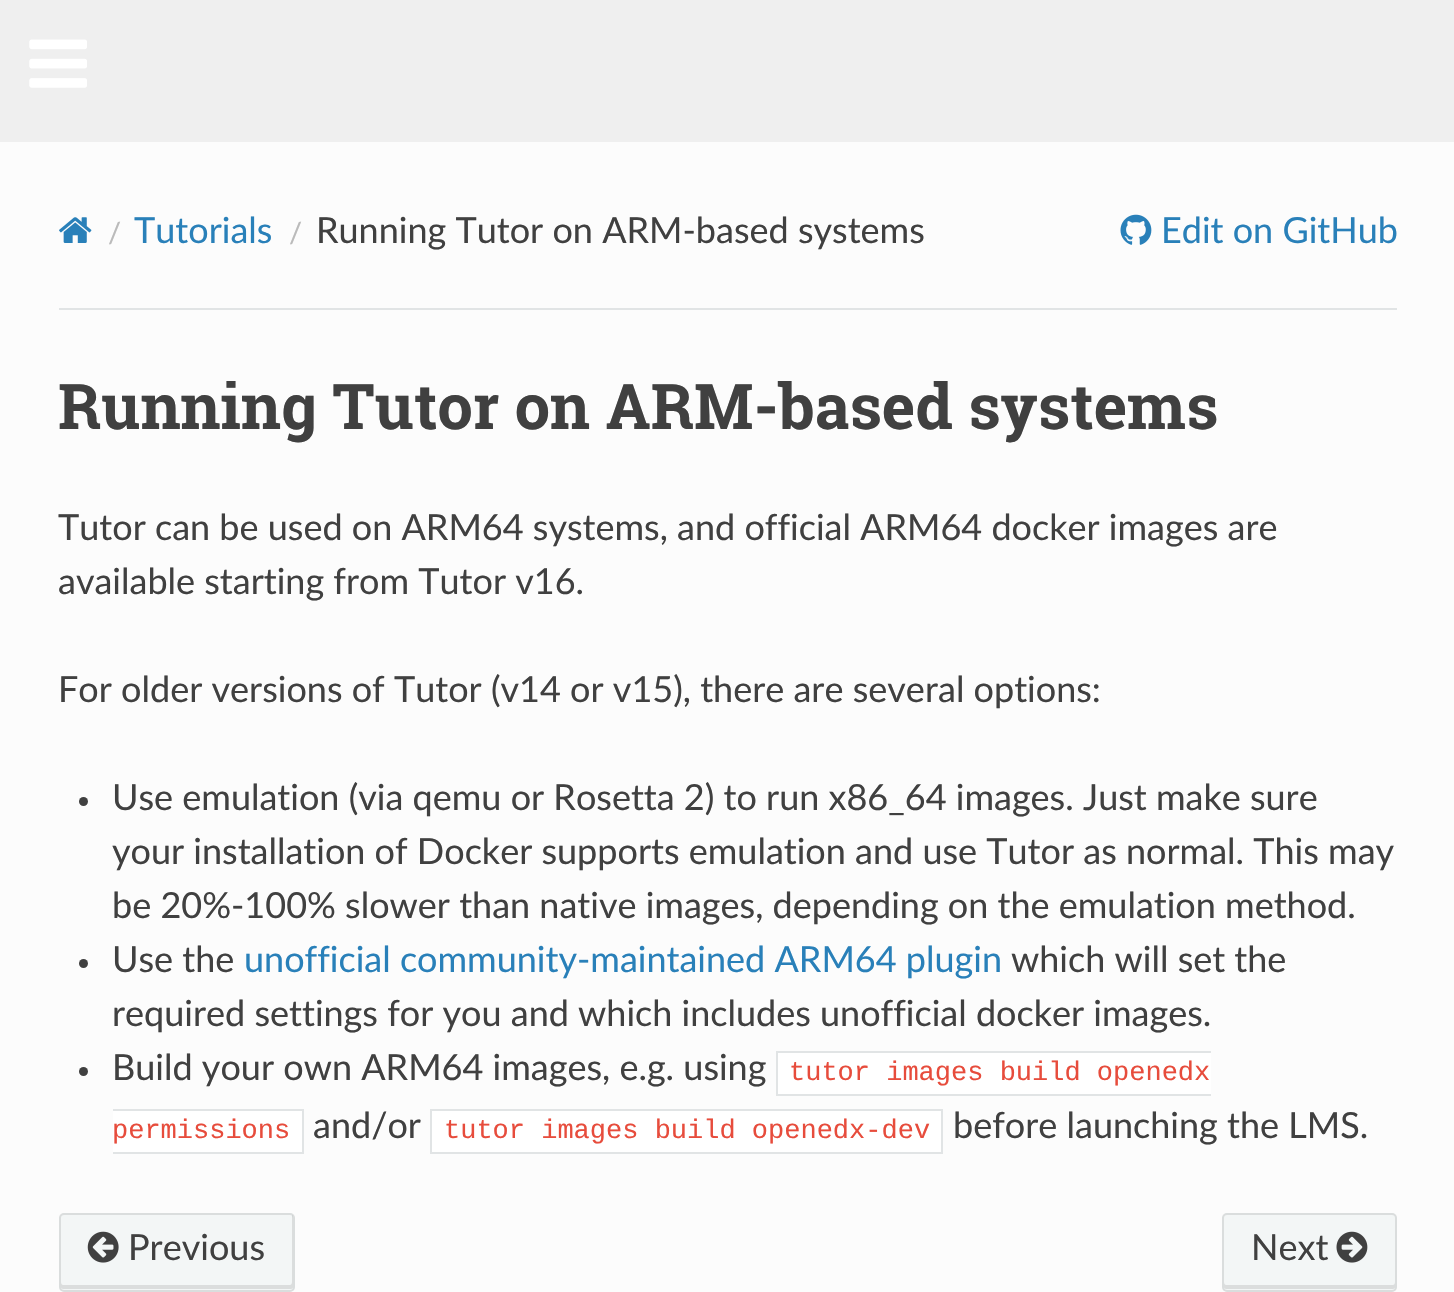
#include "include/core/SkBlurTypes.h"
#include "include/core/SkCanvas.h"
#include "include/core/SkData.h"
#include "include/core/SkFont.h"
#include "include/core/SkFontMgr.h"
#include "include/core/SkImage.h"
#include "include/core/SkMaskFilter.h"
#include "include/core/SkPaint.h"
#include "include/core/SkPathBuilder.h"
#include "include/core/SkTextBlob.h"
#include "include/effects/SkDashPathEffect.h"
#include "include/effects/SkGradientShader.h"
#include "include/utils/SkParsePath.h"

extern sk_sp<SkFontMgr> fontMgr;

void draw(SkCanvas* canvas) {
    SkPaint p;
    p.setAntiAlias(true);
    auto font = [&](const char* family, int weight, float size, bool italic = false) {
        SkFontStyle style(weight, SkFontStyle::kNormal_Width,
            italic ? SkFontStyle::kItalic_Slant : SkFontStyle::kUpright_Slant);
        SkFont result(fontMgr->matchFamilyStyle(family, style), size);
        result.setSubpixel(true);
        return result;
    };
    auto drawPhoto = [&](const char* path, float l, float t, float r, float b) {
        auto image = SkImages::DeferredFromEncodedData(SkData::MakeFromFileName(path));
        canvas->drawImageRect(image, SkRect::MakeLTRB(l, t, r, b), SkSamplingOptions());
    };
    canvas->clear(0xFFFCFCFC);
    p.setColor(0xFFEFEFEF);
    canvas->drawRect(SkRect::MakeLTRB(0, 0, 1454, 142), p);
    drawPhoto("media/1.png", 29, 39, 87, 88);
    drawPhoto("media/2.png", 59, 217, 92, 243);
    auto font1 = font("Lato", 400, 29);
    p.setColor(0xFFBBBBBB);
    canvas->drawString("/", 108, 243, font1, p);
    auto font2 = font("Lato", 400, 36);
    p.setColor(0xFF2980B9);
    canvas->drawString("Tutorials", 134, 243, font2, p);
    p.setColor(0xFFBBBBBB);
    canvas->drawString("/", 289, 243, font1, p);
    p.setColor(0xFF404040);
    canvas->drawString("Running Tutor on ARM-based systems", 316, 243, font2, p);
    drawPhoto("media/3.png", 1120, 214, 1152, 245);
    p.setColor(0xFF2980B9);
    canvas->drawString("Edit on GitHub", 1161, 243, font2, p);
    p.setColor(0xFFE1E4E5);
    canvas->drawRect(SkRect::MakeLTRB(59, 308, 1397, 310), p);
    auto font3 = font("Roboto Slab", 700, 63);
    p.setColor(0xFF404040);
    canvas->drawString("Running Tutor on ARM-based systems", 58, 429, font3, p);
    {
        const struct { const char* s; float x, y; } items[] = {
            {"Tutor can be used on ARM64 systems, and official ARM64 docker images are", 58, 540},
            {"available starting from Tutor v16.", 58, 594},
            {"For older versions of Tutor (v14 or v15), there are several options:", 58, 702},
        };
        for (auto [s, x, y] : items) {
            canvas->drawString(s, x, y, font2, p);
        }
    }
    canvas->drawCircle(83.5f, 801.5f, 4.5f, p);
    {
        const struct { const char* s; float x, y; } items[] = {
            {"Use emulation (via qemu or Rosetta 2) to run x86_64 images. Just make sure", 112, 810},
            {"your installation of Docker supports emulation and use Tutor as normal. This may", 112, 864},
            {"be 20%-100% slower than native images, depending on the emulation method.", 112, 918},
        };
        for (auto [s, x, y] : items) {
            canvas->drawString(s, x, y, font2, p);
        }
    }
    canvas->drawCircle(83.5f, 963.5f, 4.5f, p);
    canvas->drawString("Use the", 112, 972, font2, p);
    p.setColor(0xFF2980B9);
    canvas->drawString("unofficial community-maintained ARM64 plugin", 244, 972, font2, p);
    p.setColor(0xFF404040);
    canvas->drawString("which will set the", 1011, 972, font2, p);
    canvas->drawString("required settings for you and which includes unofficial docker images.", 112, 1026, font2, p);
    canvas->drawCircle(83.5f, 1071.5f, 4.5f, p);
    canvas->drawString("Build your own ARM64 images, e.g. using", 112, 1080, font2, p);
    p.setColor(0xFFFFFFFF);
    canvas->drawRect(SkRect::MakeLTRB(778, 1053, 1211, 1094), p);
    auto font4 = font("Liberation Mono", 400, 27);
    p.setColor(0xFFE74C3C);
    canvas->drawString("tutor images build openedx", 789, 1080, font4, p);
    {
        const struct { float l, t, r, b; SkColor color; } items[] = {
            {776, 1051, 1211, 1053, 0xFFE1E4E5},
            {776, 1094, 1211, 1096, 0xFFE1E4E5},
            {776, 1051, 778, 1096, 0xFFE1E4E5},
            {113, 1111, 302, 1152, 0xFFFFFFFF},
        };
        for (auto [l, t, r, b, color] : items) {
            p.setColor(color);
            canvas->drawRect(SkRect::MakeLTRB(l, t, r, b), p);
        }
    }
    p.setColor(0xFFE74C3C);
    canvas->drawString("permissions", 112, 1138, font4, p);
    {
        const struct { float l, t, r, b; SkColor color; } items[] = {
            {113, 1109, 304, 1111, 0xFFE1E4E5},
            {302, 1109, 304, 1154, 0xFFE1E4E5},
            {113, 1152, 304, 1154, 0xFFE1E4E5},
        };
        for (auto [l, t, r, b, color] : items) {
            p.setColor(color);
            canvas->drawRect(SkRect::MakeLTRB(l, t, r, b), p);
        }
    }
    p.setColor(0xFF404040);
    canvas->drawString("and/or", 313, 1138, font2, p);
    p.setColor(0xFFFFFFFF);
    canvas->drawRect(SkRect::MakeLTRB(432, 1111, 941, 1152), p);
    p.setColor(0xFFE74C3C);
    canvas->drawString("tutor images build openedx-dev", 444, 1138, font4, p);
    {
        const struct { float l, t, r, b; SkColor color; } items[] = {
            {430, 1109, 943, 1111, 0xFFE1E4E5},
            {430, 1152, 752, 1154, 0xFFE1E4E5},
            {430, 1109, 432, 1154, 0xFFE1E4E5},
            {941, 1109, 943, 1154, 0xFFE1E4E5},
            {752, 1152, 943, 1154, 0xFFE1E4E5},
        };
        for (auto [l, t, r, b, color] : items) {
            p.setColor(color);
            canvas->drawRect(SkRect::MakeLTRB(l, t, r, b), p);
        }
    }
    p.setColor(0xFF404040);
    canvas->drawString("before launching the LMS.", 953, 1138, font2, p);
    p.setColor(0xFFF3F6F6);
    canvas->drawRoundRect(SkRect::MakeLTRB(59, 1213, 295, 1292), 5, 5, p);
    p.setColor(0xFFDBDDDD);
    canvas->drawPath(SkPathBuilder().moveTo(61, 1282).lineTo(61, 1287).cubicTo(61, 1288, 62, 1289, 63, 1289).lineTo(291, 1289).cubicTo(292, 1289, 293, 1288, 293, 1287).lineTo(293, 1217).cubicTo(293, 1216, 293, 1216, 292, 1215).lineTo(292, 1282).cubicTo(292, 1284, 291, 1285, 290, 1285).lineTo(63, 1285).cubicTo(62, 1285, 61, 1284, 61, 1282).close().detach(), p);
    p.setStyle(SkPaint::kStroke_Style);
    p.setStrokeWidth(2);
    p.setColor(0x1A000000);
    canvas->drawRoundRect(SkRect::MakeLTRB(60, 1214, 294, 1291), 4, 4, p);
    drawPhoto("media/4.png", 87, 1231, 119, 1263);
    p.setStyle(SkPaint::kFill_Style);
    p.setColor(0xFF404040);
    canvas->drawString("Previous", 128, 1260, font2, p);
    p.setColor(0xFFF3F6F6);
    canvas->drawRoundRect(SkRect::MakeLTRB(1222, 1213, 1397, 1292), 5, 5, p);
    p.setColor(0xFFDBDDDD);
    canvas->drawPath(SkPathBuilder().moveTo(1224, 1282).lineTo(1224, 1287).cubicTo(1224, 1288, 1225, 1289, 1226, 1289).lineTo(1393, 1289).cubicTo(1394, 1289, 1395, 1288, 1395, 1287).lineTo(1395, 1282).cubicTo(1395, 1284, 1394, 1285, 1393, 1285).lineTo(1226, 1285).cubicTo(1225, 1285, 1224, 1284, 1224, 1282).close().detach(), p);
    p.setStyle(SkPaint::kStroke_Style);
    p.setColor(0x1A000000);
    canvas->drawRoundRect(SkRect::MakeLTRB(1223, 1214, 1396, 1291), 4, 4, p);
    p.setStyle(SkPaint::kFill_Style);
    p.setColor(0xFF404040);
    canvas->drawString("Next", 1251, 1260, font2, p);
    drawPhoto("media/5.png", 1336, 1231, 1368, 1263);
}
